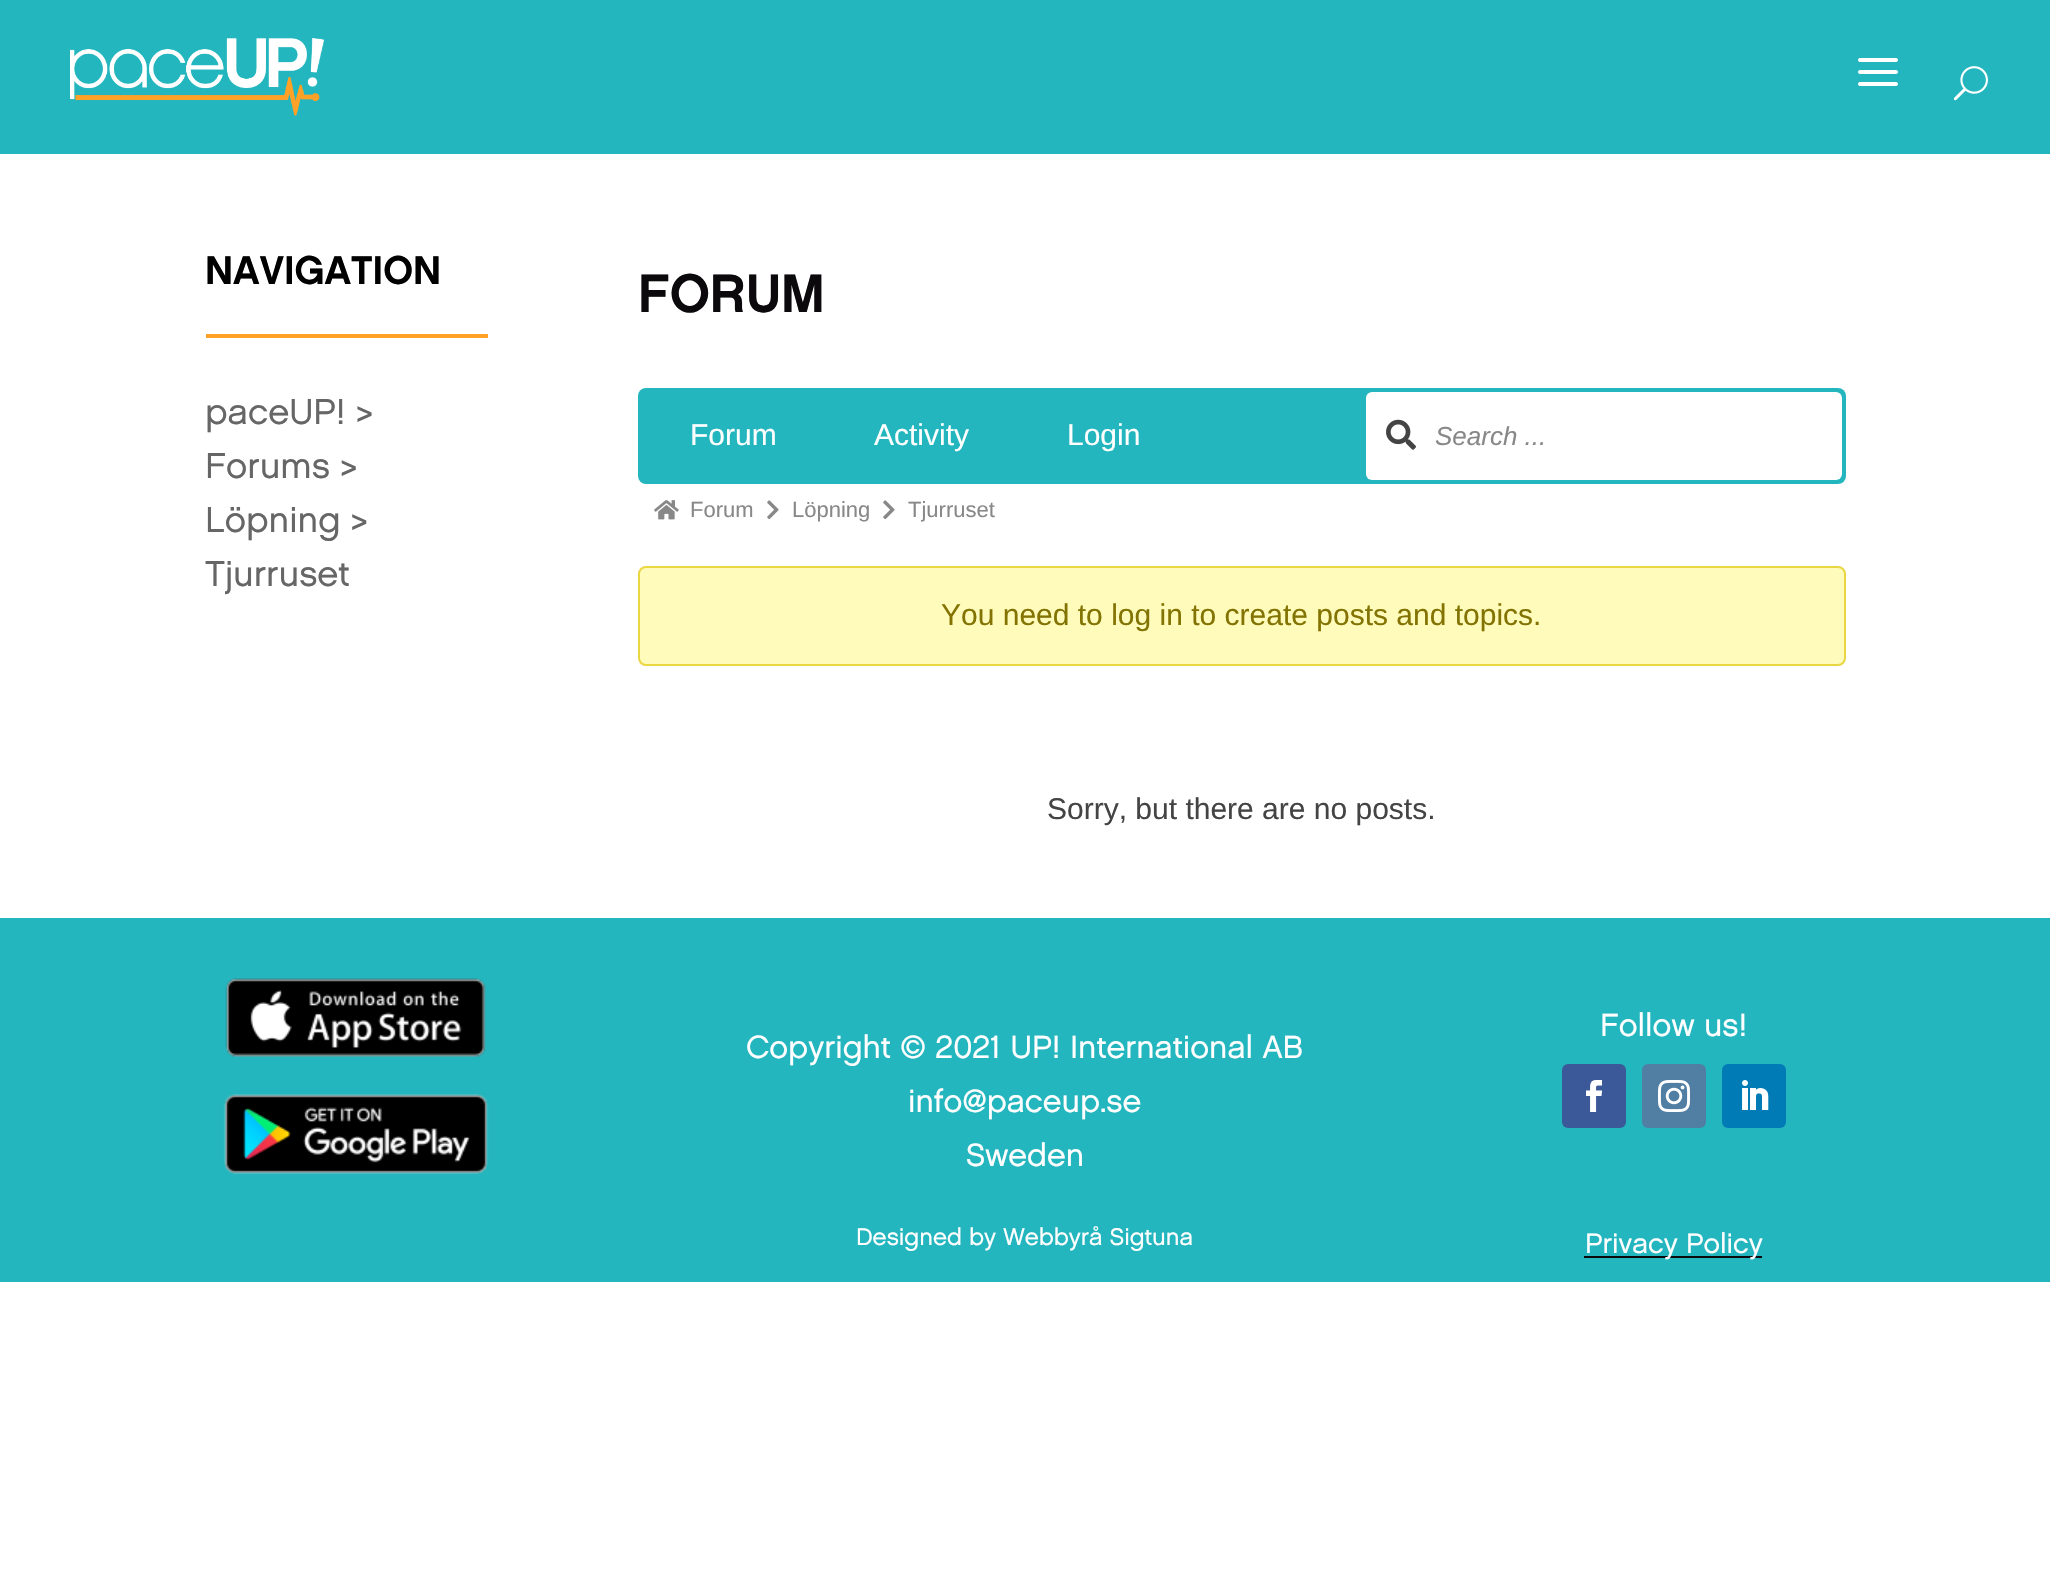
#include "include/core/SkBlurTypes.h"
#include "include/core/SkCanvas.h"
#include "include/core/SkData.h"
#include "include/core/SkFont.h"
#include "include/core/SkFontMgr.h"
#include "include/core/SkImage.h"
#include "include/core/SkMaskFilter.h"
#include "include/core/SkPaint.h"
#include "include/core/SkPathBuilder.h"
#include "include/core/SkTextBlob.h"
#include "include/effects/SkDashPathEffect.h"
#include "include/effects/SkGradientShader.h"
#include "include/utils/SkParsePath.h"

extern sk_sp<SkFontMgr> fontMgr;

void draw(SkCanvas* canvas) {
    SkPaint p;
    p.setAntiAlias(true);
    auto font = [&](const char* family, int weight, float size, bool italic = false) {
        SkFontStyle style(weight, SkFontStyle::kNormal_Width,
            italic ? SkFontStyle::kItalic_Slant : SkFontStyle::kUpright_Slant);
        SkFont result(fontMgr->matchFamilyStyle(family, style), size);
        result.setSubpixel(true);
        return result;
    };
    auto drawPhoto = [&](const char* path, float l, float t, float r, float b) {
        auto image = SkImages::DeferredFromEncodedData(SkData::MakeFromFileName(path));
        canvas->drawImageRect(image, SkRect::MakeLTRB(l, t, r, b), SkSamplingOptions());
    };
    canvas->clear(0xFFFFFFFF);
    p.setColor(0xFF24B6BE);
    canvas->drawRect(SkRect::MakeLTRB(0, 0, 2050, 154), p);
    drawPhoto("media/1.png", 70, 38, 324, 116);
    drawPhoto("media/2.png", 1858, 58, 1898, 86);
    drawPhoto("media/3.png", 1953, 66, 1988, 101);
    p.setColor(0xFFFFA126);
    canvas->drawRect(SkRect::MakeLTRB(206, 334, 488, 338), p);
    auto font1 = font("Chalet", 500, 40);
    p.setColor(0xFF000000);
    canvas->drawString("NAVIGATION", 205, 284, font1, p);
    auto font2 = font("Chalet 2", 500, 36);
    p.setColor(0xFF666666);
    {
        const struct { const char* s; float x, y; } items[] = {
            {"paceUP! >", 205, 424},
            {"Forums >", 205, 478},
            {"Löpning >", 205, 532},
            {"Tjurruset", 205, 586},
        };
        for (auto [s, x, y] : items) {
            canvas->drawString(s, x, y, font2, p);
        }
    }
    auto font3 = font("Chalet", 500, 54);
    p.setColor(0xFF0C090D);
    canvas->drawString("FORUM", 638, 312, font3, p);
    p.setColor(0xFF24B6BE);
    canvas->drawRoundRect(SkRect::MakeLTRB(638, 388, 1846, 484), 8, 8, p);
    auto font4 = font("Liberation Sans", 400, 30);
    p.setColor(0xFFFFFFFF);
    {
        const struct { const char* s; float x, y; } items[] = {
            {"Forum", 690, 445},
            {"Activity", 874, 445},
            {"Login", 1067, 445},
        };
        for (auto [s, x, y] : items) {
            canvas->drawString(s, x, y, font4, p);
        }
    }
    canvas->drawRoundRect(SkRect::MakeLTRB(1366, 392, 1842, 480), 6, 6, p);
    drawPhoto("media/4.png", 1386, 419, 1416, 450);
    auto font5 = font("Liberation Sans", 400, 26, true);
    p.setColor(0xFF888888);
    canvas->drawString("Search ...", 1435, 445, font5, p);
    drawPhoto("media/5.png", 654, 500, 679, 520);
    auto font6 = font("Liberation Sans", 400, 22);
    canvas->drawString("Forum", 690, 517, font6, p);
    drawPhoto("media/6.png", 767, 500, 779, 520);
    canvas->drawString("Löpning", 792, 517, font6, p);
    drawPhoto("media/6.png", 883, 500, 895, 520);
    canvas->drawString("Tjurruset", 908, 517, font6, p);
    p.setColor(0xFFFFFBBB);
    canvas->drawRoundRect(SkRect::MakeLTRB(639, 567, 1845, 665), 7, 7, p);
    p.setStyle(SkPaint::kStroke_Style);
    p.setStrokeWidth(2);
    p.setColor(0xFFEAD643);
    canvas->drawRoundRect(SkRect::MakeLTRB(639, 567, 1845, 665), 7, 7, p);
    p.setStyle(SkPaint::kFill_Style);
    p.setColor(0xFF827302);
    canvas->drawString("You need to log in to create posts and topics.", 941, 625, font4, p);
    p.setColor(0xFF444444);
    canvas->drawString("Sorry, but there are no posts.", 1047, 819, font4, p);
    p.setColor(0xFF24B6BE);
    canvas->drawRect(SkRect::MakeLTRB(0, 918, 2050, 1282), p);
    drawPhoto("media/7.png", 225, 978, 486, 1057);
    drawPhoto("media/8.png", 223, 1094, 489, 1175);
    auto font7 = font("Chalet 2", 500, 32);
    p.setColor(0xFFFFFFFF);
    canvas->drawString("Follow us!", 1600, 1036, font7, p);
    p.setColor(0xFF3B5998);
    canvas->drawRoundRect(SkRect::MakeLTRB(1562, 1064, 1626, 1128), 6, 6, p);
    drawPhoto("media/9.png", 1586, 1080, 1603, 1112);
    p.setColor(0xFF517FA4);
    canvas->drawRoundRect(SkRect::MakeLTRB(1642, 1064, 1706, 1128), 6, 6, p);
    drawPhoto("media/10.png", 1658, 1080, 1690, 1112);
    p.setColor(0xFF007BB6);
    canvas->drawRoundRect(SkRect::MakeLTRB(1722, 1064, 1786, 1128), 6, 6, p);
    drawPhoto("media/11.png", 1742, 1080, 1769, 1110);
    p.setColor(0xFFFFFFFF);
    {
        const struct { const char* s; float x, y; } items[] = {
            {"Copyright © 2021 UP! International AB", 746, 1058},
            {"info@paceup.se", 908, 1112},
            {"Sweden", 966, 1166},
        };
        for (auto [s, x, y] : items) {
            canvas->drawString(s, x, y, font7, p);
        }
    }
    auto font8 = font("Chalet 2", 500, 24);
    canvas->drawString("Designed by Webbyrå Sigtuna", 856, 1245, font8, p);
    p.setColor(0xFF0C090D);
    canvas->drawRect(SkRect::MakeLTRB(1584, 1256, 1762, 1258), p);
    auto font9 = font("Chalet 2", 500, 28);
    p.setColor(0xFFFFFFFF);
    canvas->drawString("Privacy Policy", 1585, 1253, font9, p);
}
